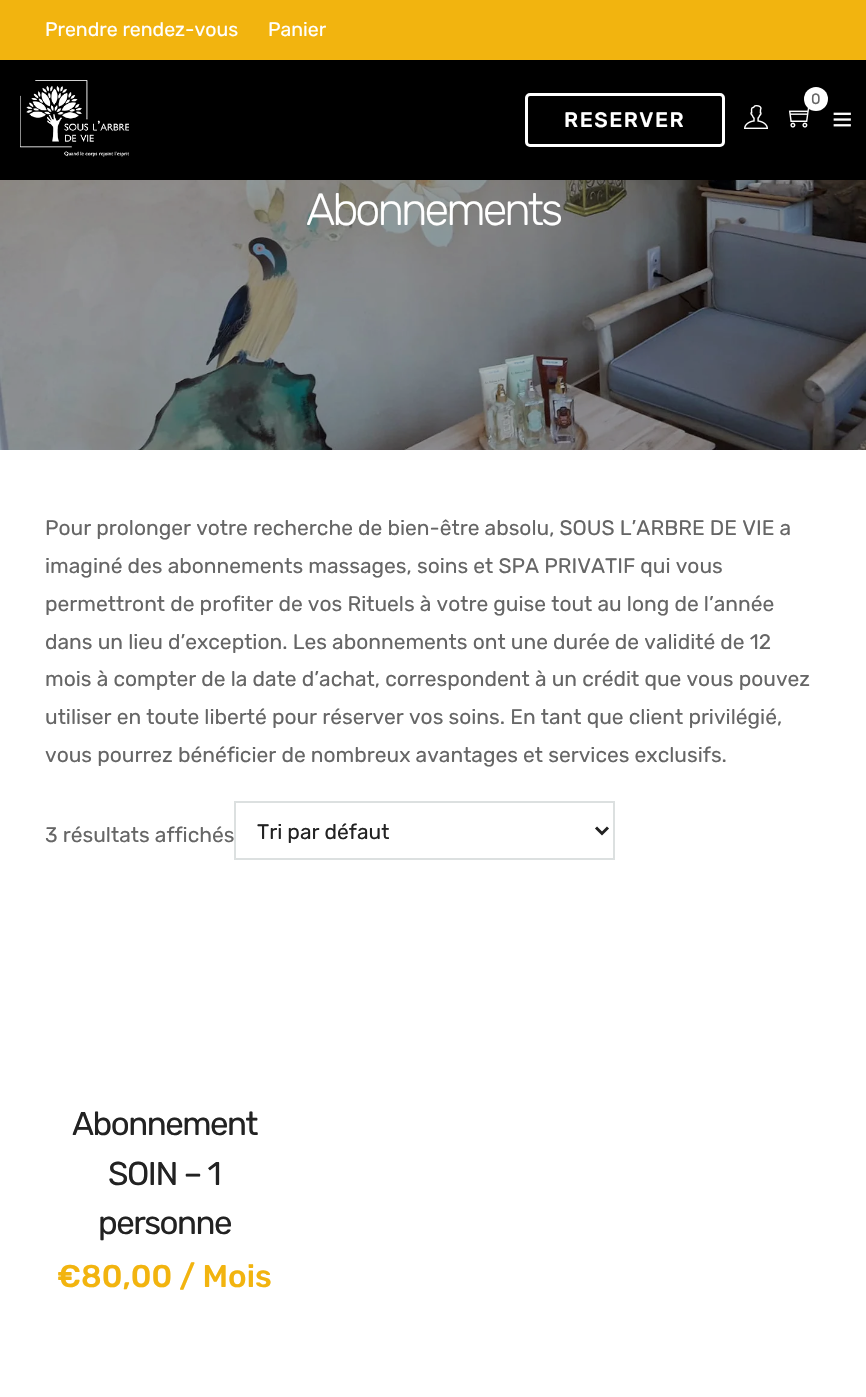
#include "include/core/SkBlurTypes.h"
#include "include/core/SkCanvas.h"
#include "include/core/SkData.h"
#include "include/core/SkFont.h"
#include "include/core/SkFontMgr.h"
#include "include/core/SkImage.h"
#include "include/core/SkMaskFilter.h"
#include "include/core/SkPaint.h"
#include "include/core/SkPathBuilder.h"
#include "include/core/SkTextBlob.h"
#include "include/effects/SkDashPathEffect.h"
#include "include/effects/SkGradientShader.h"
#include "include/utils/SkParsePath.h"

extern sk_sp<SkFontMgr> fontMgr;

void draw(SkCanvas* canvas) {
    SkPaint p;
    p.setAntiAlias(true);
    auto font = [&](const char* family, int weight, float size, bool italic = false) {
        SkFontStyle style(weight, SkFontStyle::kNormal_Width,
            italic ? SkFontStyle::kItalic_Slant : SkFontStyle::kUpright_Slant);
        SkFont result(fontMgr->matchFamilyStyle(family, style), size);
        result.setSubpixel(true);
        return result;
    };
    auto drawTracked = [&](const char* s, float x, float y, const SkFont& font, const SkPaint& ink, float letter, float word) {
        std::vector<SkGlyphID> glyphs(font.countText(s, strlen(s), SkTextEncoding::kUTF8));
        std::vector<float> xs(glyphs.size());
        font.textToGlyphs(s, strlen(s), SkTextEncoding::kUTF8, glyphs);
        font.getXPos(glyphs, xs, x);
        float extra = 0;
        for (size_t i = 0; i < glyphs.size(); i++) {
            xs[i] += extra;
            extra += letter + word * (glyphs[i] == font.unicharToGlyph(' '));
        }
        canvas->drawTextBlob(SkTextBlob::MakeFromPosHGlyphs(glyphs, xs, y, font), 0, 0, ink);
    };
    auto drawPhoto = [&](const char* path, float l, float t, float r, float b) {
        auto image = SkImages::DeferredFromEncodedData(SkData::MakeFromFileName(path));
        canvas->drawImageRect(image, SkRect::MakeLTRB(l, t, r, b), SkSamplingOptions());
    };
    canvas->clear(0xFFFFFFFF);
    p.setColor(0xFFF2B40F);
    canvas->drawRect(SkRect::MakeLTRB(0, 0, 866, 60), p);
    auto font1 = font("Rubik", 400, 19.5f);
    p.setColor(0xFFFFFFFF);
    canvas->drawString("Prendre rendez-vous", 45, 36, font1, p);
    canvas->drawString("Panier", 268, 36, font1, p);
    p.setColor(0xFF000000);
    canvas->drawRect(SkRect::MakeLTRB(0, 60, 866, 180), p);
    drawPhoto("media/1.png", 20, 80, 129, 157);
    drawPhoto("media/3.png", 788, 107, 812, 128);
    drawPhoto("media/4.png", 833, 112, 851, 127);
    p.setColor(0x1A000000);
    p.setMaskFilter(SkMaskFilter::MakeBlur(kNormal_SkBlurStyle, 4));
    canvas->drawRoundRect(SkRect::MakeLTRB(804, 89, 828, 113), 12, 12, p);
    p.setMaskFilter(nullptr);
    p.setColor(0xFFFFFFFF);
    canvas->drawCircle(816, 99, 12, p);
    auto font2 = font("Rubik", 400, 15);
    p.setColor(0xFF666666);
    canvas->drawString("0", 811, 104, font2, p);
    drawPhoto("media/2.png", 744, 105, 768, 129);
    p.setStyle(SkPaint::kStroke_Style);
    p.setStrokeWidth(3);
    p.setColor(0xFFFFFFFF);
    canvas->drawRoundRect(SkRect::MakeLTRB(526.5f, 94.5f, 723.5f, 145.5f), 3.5f, 3.5f, p);
    auto font3 = font("Rubik", 500, 21);
    p.setStyle(SkPaint::kFill_Style);
    drawTracked("RESERVER", 564, 127, font3, p, 1.5f, 0);
    drawPhoto("media/5.png", 0, 180, 866, 450);
    auto font4 = font("Rubik", 300, 45);
    drawTracked("Abonnements", 306, 225, font4, p, -3, 0);
    auto font5 = font("Rubik", 400, 21);
    p.setColor(0xFF666666);
    {
        const struct { const char* s; float x, y; } items[] = {
            {"Pour prolonger votre recherche de bien-être absolu, SOUS L’ARBRE DE VIE a", 45, 535},
            {"imaginé des abonnements massages, soins et SPA PRIVATIF qui vous", 45, 573},
            {"permettront de profiter de vos Rituels à votre guise tout au long de l’année", 45, 611},
            {"dans un lieu d’exception. Les abonnements ont une durée de validité de 12", 45, 649},
            {"mois à compter de la date d’achat, correspondent à un crédit que vous pouvez", 45, 686},
            {"utiliser en toute liberté pour réserver vos soins. En tant que client privilégié,", 45, 724},
            {"vous pourrez bénéficier de nombreux avantages et services exclusifs.", 45, 762},
            {"3 résultats affichés", 45, 842},
        };
        for (auto [s, x, y] : items) {
            canvas->drawString(s, x, y, font5, p);
        }
    }
    p.setStyle(SkPaint::kStroke_Style);
    p.setStrokeWidth(2);
    p.setColor(0xFFDCE0E0);
    canvas->drawRect(SkRect::MakeLTRB(235, 802, 614, 859), p);
    p.setStrokeWidth(3);
    p.setColor(0xFF222222);
    canvas->drawPath(SkPathBuilder().moveTo(596, 827.5f).lineTo(602, 833.5f).lineTo(608, 827.5f).detach(), p);
    p.setStyle(SkPaint::kFill_Style);
    canvas->drawString("Tri par défaut", 257, 839, font5, p);
    auto font6 = font("Rubik", 400, 33);
    {
        const struct { const char* s; float x, y; } items[] = {
            {"Abonnement", 72, 1135},
            {"SOIN – 1", 108, 1185},
            {"personne", 98, 1234},
        };
        for (auto [s, x, y] : items) {
            drawTracked(s, x, y, font6, p, -1.5f, 0);
        }
    }
    auto font7 = font("Rubik", 500, 31.5f);
    p.setColor(0xFFF2B40F);
    canvas->drawString("€80,00 / Mois", 57, 1287, font7, p);
}
